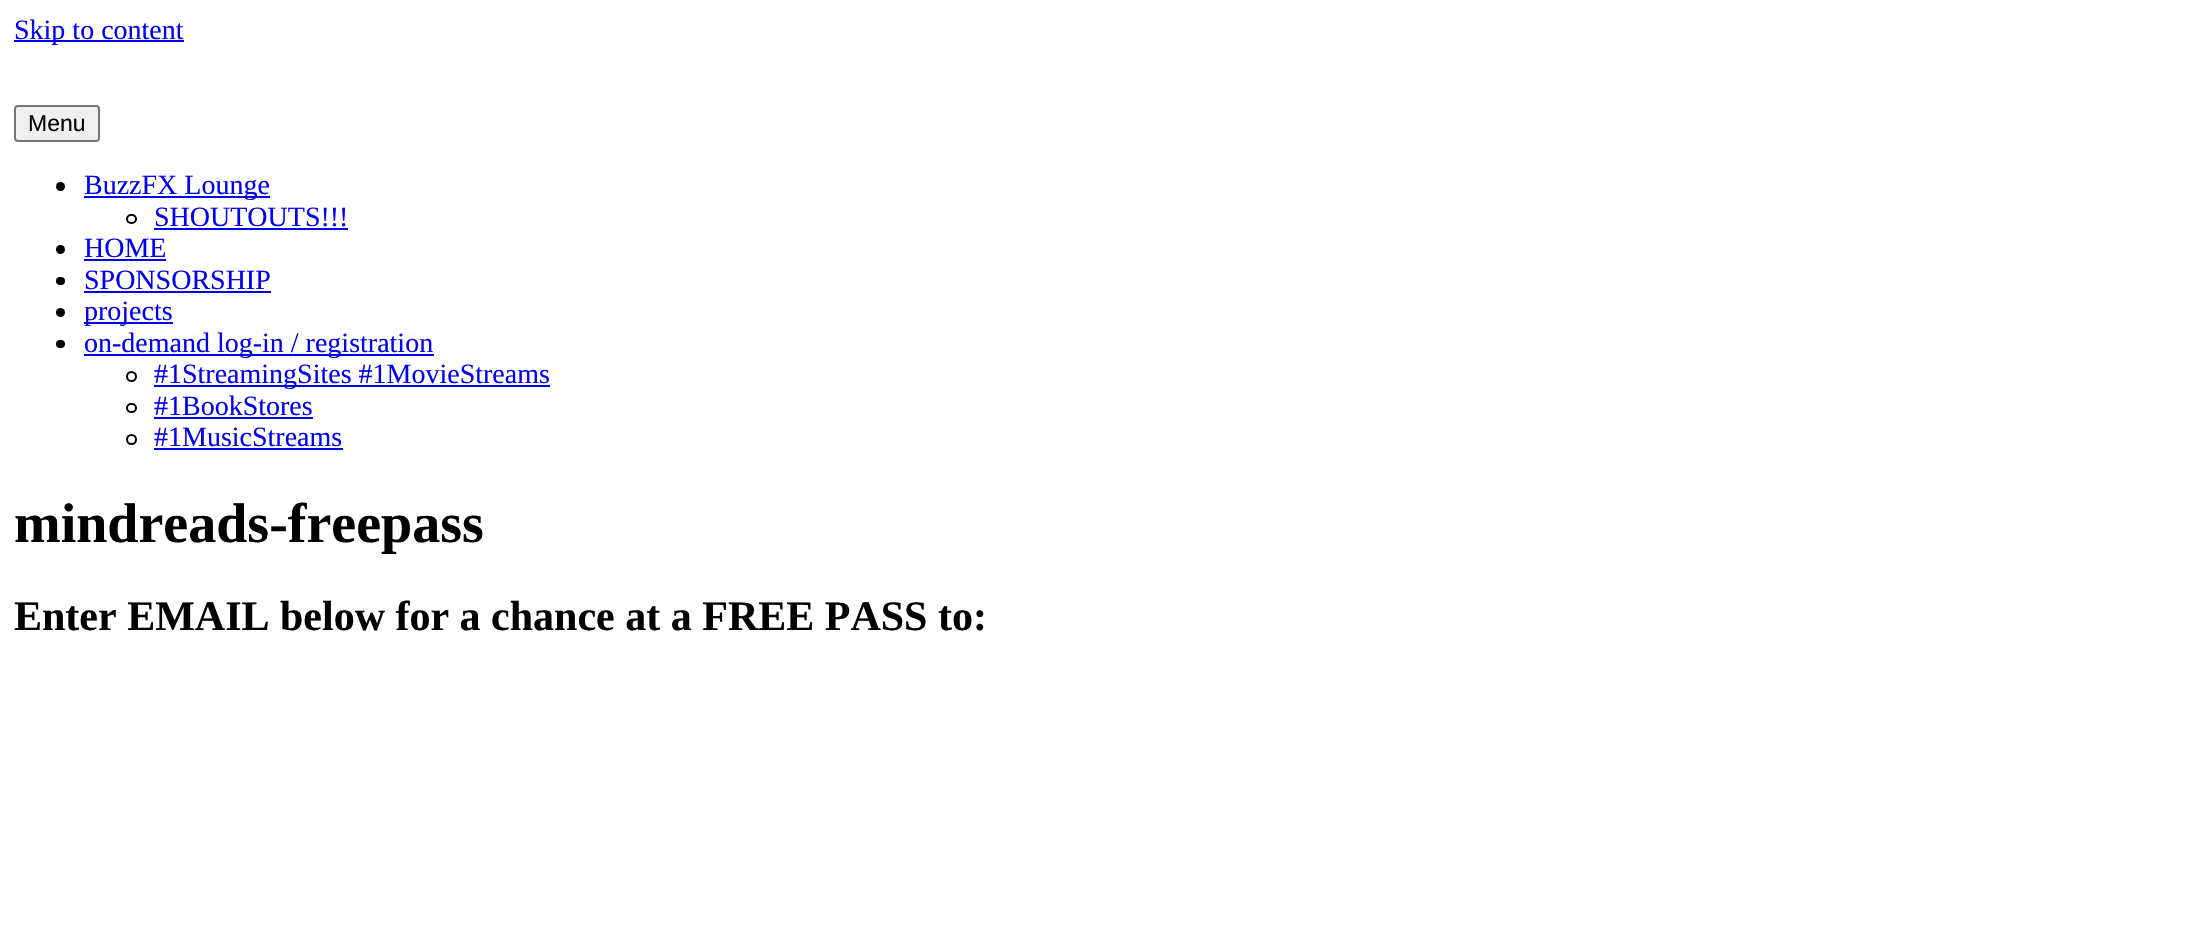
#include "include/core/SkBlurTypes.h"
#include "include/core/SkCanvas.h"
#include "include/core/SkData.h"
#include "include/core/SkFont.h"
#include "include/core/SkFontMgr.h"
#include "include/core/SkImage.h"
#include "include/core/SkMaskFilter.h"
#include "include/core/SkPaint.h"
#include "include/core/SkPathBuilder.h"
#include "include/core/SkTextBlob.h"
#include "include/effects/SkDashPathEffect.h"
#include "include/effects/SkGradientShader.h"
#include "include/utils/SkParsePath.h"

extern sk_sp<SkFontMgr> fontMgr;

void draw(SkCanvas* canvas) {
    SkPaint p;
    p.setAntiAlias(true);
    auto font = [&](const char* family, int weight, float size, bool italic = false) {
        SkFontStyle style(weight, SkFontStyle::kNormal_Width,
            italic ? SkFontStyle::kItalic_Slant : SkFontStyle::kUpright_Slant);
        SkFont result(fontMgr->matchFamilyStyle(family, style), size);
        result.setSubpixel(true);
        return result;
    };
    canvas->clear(0xFFFFFFFF);
    p.setColor(0xFF0000EE);
    canvas->drawRect(SkRect::MakeLTRB(14, 40, 184, 42), p);
    auto font1 = font("Liberation Serif", 400, 28);
    canvas->drawString("Skip to content", 14, 39, font1, p);
    p.setColor(0xFFEFEFEF);
    canvas->drawRoundRect(SkRect::MakeLTRB(15, 106, 99, 141), 3, 3, p);
    p.setStyle(SkPaint::kStroke_Style);
    p.setStrokeWidth(2);
    p.setColor(0xFF767676);
    canvas->drawRoundRect(SkRect::MakeLTRB(15, 106, 99, 141), 3, 3, p);
    auto font2 = font("Liberation Sans", 400, 23);
    p.setStyle(SkPaint::kFill_Style);
    p.setColor(0xFF000000);
    canvas->drawString("Menu", 28, 131, font2, p);
    canvas->drawCircle(60.5f, 186.5f, 4.5f, p);
    p.setColor(0xFF0000EE);
    canvas->drawRect(SkRect::MakeLTRB(84, 196, 270, 198), p);
    canvas->drawString("BuzzFX Lounge", 84, 194, font1, p);
    p.setStyle(SkPaint::kStroke_Style);
    p.setColor(0xFF000000);
    canvas->drawRoundRect(SkRect::MakeLTRB(127, 215, 136, 223), 4, 4, p);
    p.setStyle(SkPaint::kFill_Style);
    p.setColor(0xFF0000EE);
    canvas->drawString("SHOUTOUTS!!!", 154, 226, font1, p);
    canvas->drawRect(SkRect::MakeLTRB(154, 228, 348, 230), p);
    p.setColor(0xFF000000);
    canvas->drawCircle(60.5f, 249.5f, 4.5f, p);
    p.setColor(0xFF0000EE);
    canvas->drawString("HOME", 84, 257, font1, p);
    canvas->drawRect(SkRect::MakeLTRB(84, 259, 166, 261), p);
    p.setColor(0xFF000000);
    canvas->drawRoundRect(SkRect::MakeLTRB(56, 277, 65, 285), 4, 4, p);
    p.setColor(0xFF0000EE);
    canvas->drawString("SPONSORSHIP", 84, 289, font1, p);
    canvas->drawRect(SkRect::MakeLTRB(84, 291, 271, 293), p);
    p.setColor(0xFF000000);
    canvas->drawCircle(60.5f, 312.5f, 4.5f, p);
    p.setColor(0xFF0000EE);
    canvas->drawRect(SkRect::MakeLTRB(84, 322, 173, 324), p);
    canvas->drawString("projects", 84, 320, font1, p);
    p.setColor(0xFF000000);
    canvas->drawRoundRect(SkRect::MakeLTRB(56, 340, 65, 348), 4, 4, p);
    p.setColor(0xFF0000EE);
    canvas->drawRect(SkRect::MakeLTRB(84, 354, 434, 356), p);
    canvas->drawString("on-demand log-in / registration", 84, 352, font1, p);
    p.setStyle(SkPaint::kStroke_Style);
    p.setColor(0xFF000000);
    canvas->drawCircle(131.5f, 376.5f, 4.5f, p);
    p.setStyle(SkPaint::kFill_Style);
    p.setColor(0xFF0000EE);
    canvas->drawRect(SkRect::MakeLTRB(154, 385, 550, 387), p);
    canvas->drawString("#1StreamingSites #1MovieStreams", 154, 383, font1, p);
    p.setStyle(SkPaint::kStroke_Style);
    p.setColor(0xFF000000);
    canvas->drawRoundRect(SkRect::MakeLTRB(127, 404, 136, 412), 4, 4, p);
    p.setStyle(SkPaint::kFill_Style);
    p.setColor(0xFF0000EE);
    canvas->drawString("#1BookStores", 154, 415, font1, p);
    canvas->drawRect(SkRect::MakeLTRB(154, 417, 313, 419), p);
    p.setStyle(SkPaint::kStroke_Style);
    p.setColor(0xFF000000);
    canvas->drawCircle(131.5f, 439.5f, 4.5f, p);
    p.setStyle(SkPaint::kFill_Style);
    p.setColor(0xFF0000EE);
    canvas->drawString("#1MusicStreams", 154, 446, font1, p);
    canvas->drawRect(SkRect::MakeLTRB(154, 448, 343, 450), p);
    auto font3 = font("Liberation Serif", 700, 56);
    p.setColor(0xFF000000);
    canvas->drawString("mindreads-freepass", 14, 542, font3, p);
    auto font4 = font("Liberation Serif", 700, 42);
    canvas->drawString("Enter EMAIL below for a chance at a FREE PASS to:", 14, 630, font4, p);
}
